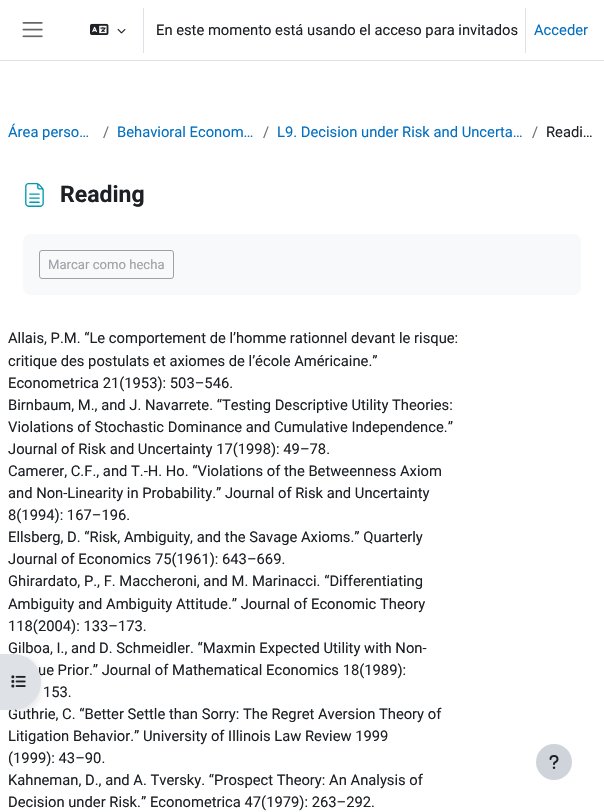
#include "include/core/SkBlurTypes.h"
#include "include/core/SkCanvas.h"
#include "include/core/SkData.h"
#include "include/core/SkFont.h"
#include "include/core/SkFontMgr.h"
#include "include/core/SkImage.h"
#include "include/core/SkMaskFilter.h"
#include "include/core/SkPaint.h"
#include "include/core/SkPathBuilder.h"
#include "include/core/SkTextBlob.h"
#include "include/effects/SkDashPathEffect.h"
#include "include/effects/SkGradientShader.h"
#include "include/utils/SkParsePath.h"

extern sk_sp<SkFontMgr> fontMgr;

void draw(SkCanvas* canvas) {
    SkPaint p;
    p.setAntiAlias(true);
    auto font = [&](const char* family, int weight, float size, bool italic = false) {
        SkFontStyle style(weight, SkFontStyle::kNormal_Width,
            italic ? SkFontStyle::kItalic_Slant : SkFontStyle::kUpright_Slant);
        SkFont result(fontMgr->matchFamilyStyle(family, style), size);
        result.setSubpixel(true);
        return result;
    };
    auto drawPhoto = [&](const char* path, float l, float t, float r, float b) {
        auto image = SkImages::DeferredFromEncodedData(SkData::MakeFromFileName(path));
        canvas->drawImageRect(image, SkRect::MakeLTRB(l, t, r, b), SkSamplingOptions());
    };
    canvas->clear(0xFFFFFFFF);
    p.setColor(0xFFDEE2E6);
    canvas->drawRect(SkRect::MakeLTRB(0, 60, 604, 61), p);
    drawPhoto("media/1.png", 22, 22, 43, 38);
    drawPhoto("media/2.png", 90, 23, 109, 35);
    drawPhoto("media/3.png", 117, 29, 126, 34);
    canvas->drawRect(SkRect::MakeLTRB(143, 8, 144, 53), p);
    auto font1 = font("Roboto", 400, 14.75f);
    p.setColor(0xFF1D2125);
    canvas->drawString("En este momento está usando el acceso para invitados", 156, 35, font1, p);
    p.setColor(0xFFDEE2E6);
    canvas->drawRect(SkRect::MakeLTRB(525, 8, 526, 53), p);
    p.setColor(0xFF0470C1);
    canvas->drawString("Acceder", 534, 35, font1, p);
    canvas->drawString("Área perso…", 8, 137, font1, p);
    p.setColor(0xFF6A737B);
    canvas->drawString("/", 103, 137, font1, p);
    p.setColor(0xFF0470C1);
    canvas->drawString("Behavioral Econom…", 117, 137, font1, p);
    p.setColor(0xFF6A737B);
    canvas->drawString("/", 263, 137, font1, p);
    p.setColor(0xFF0470C1);
    canvas->drawString("L9. Decision under Risk and Uncerta…", 277, 137, font1, p);
    p.setColor(0xFF6A737B);
    canvas->drawString("/", 532, 137, font1, p);
    p.setColor(0xFF1D2125);
    canvas->drawString("Readi…", 546, 137, font1, p);
    drawPhoto("media/4.png", 25, 183, 44, 207);
    auto font2 = font("Roboto", 700, 23);
    canvas->drawString("Reading", 60, 202, font2, p);
    p.setColor(0xFFF8F9FA);
    canvas->drawRoundRect(SkRect::MakeLTRB(23, 234, 581, 295), 8, 8, p);
    p.setStyle(SkPaint::kStroke_Style);
    p.setStrokeWidth(1);
    p.setColor(0xFF9CA2A7);
    canvas->drawRoundRect(SkRect::MakeLTRB(39.5f, 250.5f, 173.5f, 278.5f), 2.5f, 2.5f, p);
    auto font3 = font("Roboto", 400, 13.1f);
    p.setStyle(SkPaint::kFill_Style);
    canvas->drawString("Marcar como hecha", 48, 269, font3, p);
    p.setColor(0xFF1D2125);
    {
        const struct { const char* s; float x, y; } items[] = {
            {"Allais, P.M. “Le comportement de l’homme rationnel devant le risque:", 8, 343},
            {"critique des postulats et axiomes de l’école Américaine.”", 8, 366},
            {"Econometrica 21(1953): 503–546.", 8, 388},
            {"Birnbaum, M., and J. Navarrete. “Testing Descriptive Utility Theories:", 8, 410},
            {"Violations of Stochastic Dominance and Cumulative Independence.”", 8, 432},
            {"Journal of Risk and Uncertainty 17(1998): 49–78.", 8, 454},
            {"Camerer, C.F., and T.-H. Ho. “Violations of the Betweenness Axiom", 8, 476},
            {"and Non-Linearity in Probability.” Journal of Risk and Uncertainty", 8, 498},
            {"8(1994): 167–196.", 8, 520},
            {"Ellsberg, D. “Risk, Ambiguity, and the Savage Axioms.” Quarterly", 8, 542},
            {"Journal of Economics 75(1961): 643–669.", 8, 564},
            {"Ghirardato, P., F. Maccheroni, and M. Marinacci. “Differentiating", 8, 586},
            {"Ambiguity and Ambiguity Attitude.” Journal of Economic Theory", 8, 609},
            {"118(2004): 133–173.", 8, 631},
            {"Gilboa, I., and D. Schmeidler. “Maxmin Expected Utility with Non-", 8, 653},
            {"ue Prior.” Journal of Mathematical Economics 18(1989):", 38, 675},
            {"153.", 43, 697},
            {"Guthrie, C. “Better Settle than Sorry: The Regret Aversion Theory of", 8, 719},
            {"Litigation Behavior.” University of Illinois Law Review 1999", 8, 741},
            {"(1999): 43–90.", 8, 763},
            {"Kahneman, D., and A. Tversky. “Prospect Theory: An Analysis of", 8, 785},
            {"Decision under Risk.” Econometrica 47(1979): 263–292.", 8, 807},
        };
        for (auto [s, x, y] : items) {
            canvas->drawString(s, x, y, font1, p);
        }
    }
    p.setColor(0x12000000);
    p.setMaskFilter(SkMaskFilter::MakeBlur(kNormal_SkBlurStyle, 2));
    canvas->drawRoundRect(SkRect::MakeLTRB(0, 656, 41, 712), 28, 28, p);
    p.setMaskFilter(nullptr);
    p.setColor(0xFFDEE2E6);
    canvas->drawPath(SkPathBuilder().moveTo(0, 654).lineTo(13, 654).cubicTo(28.5f, 654, 41, 666.5f, 41, 682).cubicTo(41, 697.5f, 28.5f, 710, 13, 710).lineTo(0, 710).close().detach(), p);
    drawPhoto("media/5.png", 11, 675, 26, 688);
    p.setColor(0xFFCED4DA);
    canvas->drawCircle(554, 762, 18, p);
    drawPhoto("media/6.png", 549, 755, 559, 769);
}
